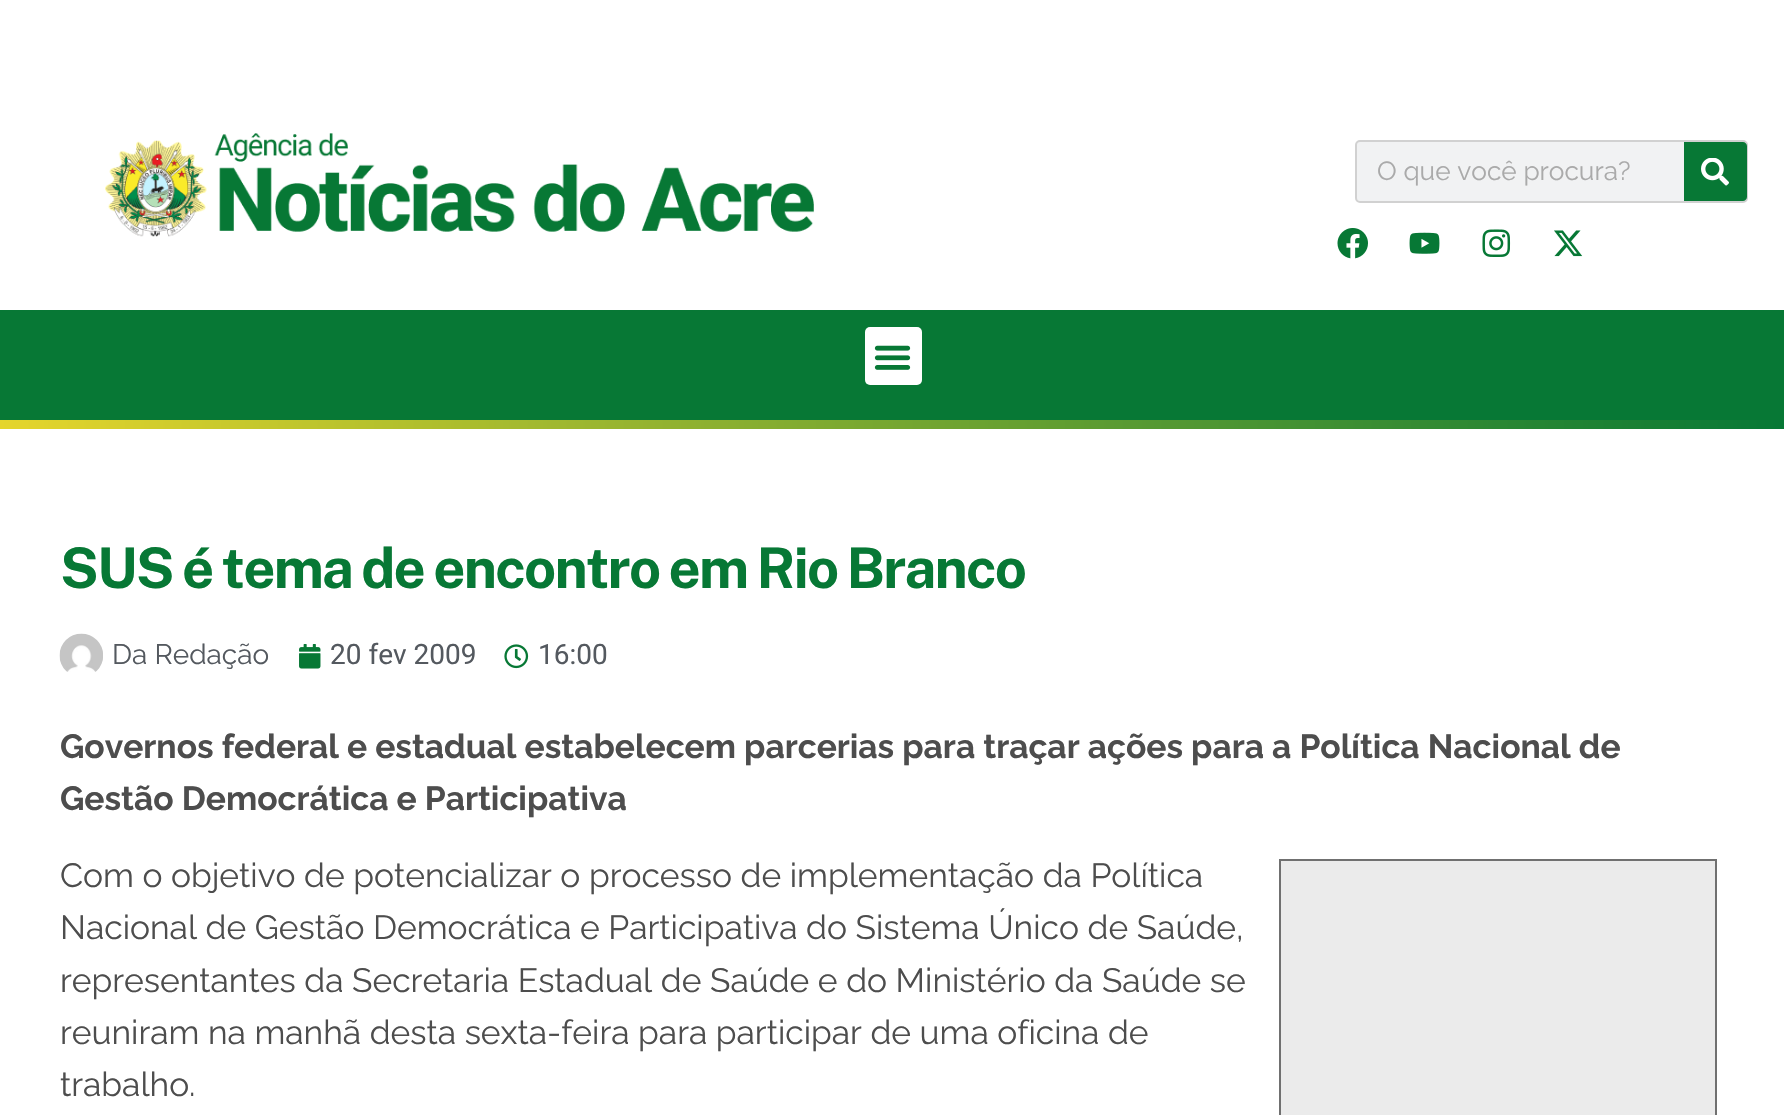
#include "include/core/SkBlurTypes.h"
#include "include/core/SkCanvas.h"
#include "include/core/SkData.h"
#include "include/core/SkFont.h"
#include "include/core/SkFontMgr.h"
#include "include/core/SkImage.h"
#include "include/core/SkMaskFilter.h"
#include "include/core/SkPaint.h"
#include "include/core/SkPathBuilder.h"
#include "include/core/SkTextBlob.h"
#include "include/effects/SkDashPathEffect.h"
#include "include/effects/SkGradientShader.h"
#include "include/utils/SkParsePath.h"

extern sk_sp<SkFontMgr> fontMgr;

void draw(SkCanvas* canvas) {
    SkPaint p;
    p.setAntiAlias(true);
    auto font = [&](const char* family, int weight, float size, bool italic = false) {
        SkFontStyle style(weight, SkFontStyle::kNormal_Width,
            italic ? SkFontStyle::kItalic_Slant : SkFontStyle::kUpright_Slant);
        SkFont result(fontMgr->matchFamilyStyle(family, style), size);
        result.setSubpixel(true);
        return result;
    };
    auto drawTracked = [&](const char* s, float x, float y, const SkFont& font, const SkPaint& ink, float letter, float word) {
        std::vector<SkGlyphID> glyphs(font.countText(s, strlen(s), SkTextEncoding::kUTF8));
        std::vector<float> xs(glyphs.size());
        font.textToGlyphs(s, strlen(s), SkTextEncoding::kUTF8, glyphs);
        font.getXPos(glyphs, xs, x);
        float extra = 0;
        for (size_t i = 0; i < glyphs.size(); i++) {
            xs[i] += extra;
            extra += letter + word * (glyphs[i] == font.unicharToGlyph(' '));
        }
        canvas->drawTextBlob(SkTextBlob::MakeFromPosHGlyphs(glyphs, xs, y, font), 0, 0, ink);
    };
    auto drawPhoto = [&](const char* path, float l, float t, float r, float b) {
        auto image = SkImages::DeferredFromEncodedData(SkData::MakeFromFileName(path));
        canvas->drawImageRect(image, SkRect::MakeLTRB(l, t, r, b), SkSamplingOptions());
    };
    canvas->clear(0xFFFFFFFF);
    drawPhoto("media/1.png", 105, 133, 814, 237);
    p.setColor(0xFFF1F2F3);
    canvas->drawRoundRect(SkRect::MakeLTRB(1356, 141, 1747, 202), 4, 4, p);
    p.setStyle(SkPaint::kStroke_Style);
    p.setStrokeWidth(2);
    p.setColor(0xFFD1D1D1);
    canvas->drawRoundRect(SkRect::MakeLTRB(1356, 141, 1747, 202), 4, 4, p);
    auto font1 = font("Raleway", 400, 26.25f);
    p.setStyle(SkPaint::kFill_Style);
    p.setColor(0xFFAAAAAA);
    canvas->drawString("O que você procura?", 1377, 180, font1, p);
    p.setColor(0xFF077835);
    canvas->drawPath(SkPathBuilder().moveTo(1684, 142).lineTo(1743, 142).cubicTo(1745, 142, 1747, 144, 1747, 146).lineTo(1747, 197).cubicTo(1747, 199, 1745, 201, 1743, 201).lineTo(1684, 201).close().detach(), p);
    drawPhoto("media/2.png", 1701, 158, 1729, 186);
    drawPhoto("media/3.png", 1337, 228, 1368, 259);
    drawPhoto("media/4.png", 1409, 232, 1440, 254);
    drawPhoto("media/5.png", 1482, 229, 1511, 257);
    drawPhoto("media/6.png", 1554, 230, 1583, 257);
    canvas->drawRect(SkRect::MakeLTRB(0, 310, 1784, 420), p);
    p.setColor(0xFFFFFFFF);
    canvas->drawRoundRect(SkRect::MakeLTRB(865, 327, 922, 385), 5, 5, p);
    drawPhoto("media/7.png", 874, 345, 911, 370);
    {
        const SkColor colors[] = {0xFF077835, 0xFFE5D52C};
        const float stops[] = {0, 1};
        const SkPoint ends[] = {{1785, 424}, {0, 424}};
        p.setShader(SkGradientShader::MakeLinear(ends, colors, stops, 2, SkTileMode::kClamp));
        p.setAlpha(255);
    }
    canvas->drawRect(SkRect::MakeLTRB(0, 420, 1784, 429), p);
    auto font2 = font("Public Sans", 700, 56);
    p.setShader(nullptr);
    p.setColor(0xFF077835);
    drawTracked("SUS é tema de encontro em Rio Branco", 60, 588, font2, p, -1.75f, -1.75f);
    drawPhoto("media/8.png", 59, 633, 103, 672);
    auto font3 = font("Raleway", 400, 28);
    p.setColor(0xFF54595F);
    canvas->drawString("Da Redação", 112, 664, font3, p);
    drawPhoto("media/9.png", 299, 644, 321, 669);
    auto font4 = font("Roboto", 400, 28);
    canvas->drawString("20 fev 2009", 330, 664, font4, p);
    drawPhoto("media/10.png", 504, 644, 529, 669);
    canvas->drawString("16:00", 538, 664, font4, p);
    auto font5 = font("Raleway", 700, 33.6f);
    p.setColor(0xFF4D4D4D);
    canvas->drawString("Governos federal e estadual estabelecem parcerias para traçar ações para a Política Nacional de", 60, 758, font5, p);
    canvas->drawString("Gestão Democrática e Participativa", 60, 810, font5, p);
    auto font6 = font("Raleway", 400, 33.6f);
    {
        const struct { const char* s; float x, y; } items[] = {
            {"Com o objetivo de potencializar o processo de implementação da Política", 60, 887},
            {"Nacional de Gestão Democrática e Participativa do Sistema Único de Saúde,", 60, 939},
            {"representantes da Secretaria Estadual de Saúde e do Ministério da Saúde se", 60, 992},
            {"reuniram na manhã desta sexta-feira para participar de uma oficina de", 60, 1044},
            {"trabalho.", 60, 1096},
        };
        for (auto [s, x, y] : items) {
            canvas->drawString(s, x, y, font6, p);
        }
    }
    p.setColor(0xFFEBEBEB);
    canvas->drawRect(SkRect::MakeLTRB(1280, 860, 1716, 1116), p);
    p.setStyle(SkPaint::kStroke_Style);
    p.setColor(0xFF707070);
    canvas->drawRect(SkRect::MakeLTRB(1280, 860, 1716, 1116), p);
}
